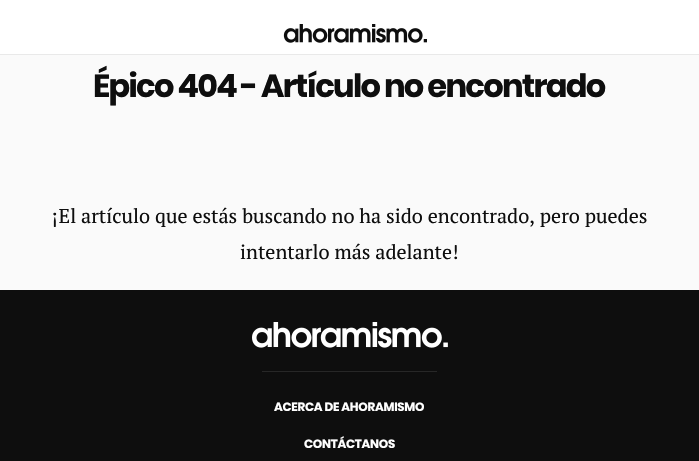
#include "include/core/SkBlurTypes.h"
#include "include/core/SkCanvas.h"
#include "include/core/SkData.h"
#include "include/core/SkFont.h"
#include "include/core/SkFontMgr.h"
#include "include/core/SkImage.h"
#include "include/core/SkMaskFilter.h"
#include "include/core/SkPaint.h"
#include "include/core/SkPathBuilder.h"
#include "include/core/SkTextBlob.h"
#include "include/effects/SkDashPathEffect.h"
#include "include/effects/SkGradientShader.h"
#include "include/utils/SkParsePath.h"

extern sk_sp<SkFontMgr> fontMgr;

void draw(SkCanvas* canvas) {
    SkPaint p;
    p.setAntiAlias(true);
    auto font = [&](const char* family, int weight, float size, bool italic = false) {
        SkFontStyle style(weight, SkFontStyle::kNormal_Width,
            italic ? SkFontStyle::kItalic_Slant : SkFontStyle::kUpright_Slant);
        SkFont result(fontMgr->matchFamilyStyle(family, style), size);
        result.setSubpixel(true);
        return result;
    };
    auto drawTracked = [&](const char* s, float x, float y, const SkFont& font, const SkPaint& ink, float letter, float word) {
        std::vector<SkGlyphID> glyphs(font.countText(s, strlen(s), SkTextEncoding::kUTF8));
        std::vector<float> xs(glyphs.size());
        font.textToGlyphs(s, strlen(s), SkTextEncoding::kUTF8, glyphs);
        font.getXPos(glyphs, xs, x);
        float extra = 0;
        for (size_t i = 0; i < glyphs.size(); i++) {
            xs[i] += extra;
            extra += letter + word * (glyphs[i] == font.unicharToGlyph(' '));
        }
        canvas->drawTextBlob(SkTextBlob::MakeFromPosHGlyphs(glyphs, xs, y, font), 0, 0, ink);
    };
    auto drawPhoto = [&](const char* path, float l, float t, float r, float b) {
        auto image = SkImages::DeferredFromEncodedData(SkData::MakeFromFileName(path));
        canvas->drawImageRect(image, SkRect::MakeLTRB(l, t, r, b), SkSamplingOptions());
    };
    canvas->clear(0xFFFAFAFA);
    p.setColor(0xFFE9E9E9);
    canvas->drawRect(SkRect::MakeLTRB(0, 54, 699, 55), p);
    p.setColor(0xFFFFFFFF);
    canvas->drawRect(SkRect::MakeLTRB(0, 0, 699, 54), p);
    drawPhoto("media/1.png", 283, 24, 427, 43);
    auto font1 = font("Poppins", 700, 32);
    p.setColor(0xFF0E0E0E);
    drawTracked("Épico 404 - Artículo no encontrado", 93, 97, font1, p, -1.7f, 0);
    auto font2 = font("PT Serif", 400, 20);
    canvas->drawString("¡El artículo que estás buscando no ha sido encontrado, pero puedes", 52, 223, font2, p);
    canvas->drawString("intentarlo más adelante!", 240, 259, font2, p);
    canvas->drawRect(SkRect::MakeLTRB(0, 290, 699, 461), p);
    drawPhoto("media/2.png", 252, 322, 448, 348);
    p.setColor(0xFF272727);
    canvas->drawRect(SkRect::MakeLTRB(262, 371, 437, 372), p);
    auto font3 = font("Poppins", 700, 12);
    p.setColor(0xFFFFFFFF);
    drawTracked("ACERCA DE AHORAMISMO", 274, 411, font3, p, -0.25f, 0);
    drawTracked("CONTÁCTANOS", 304, 448, font3, p, -0.25f, 0);
}
